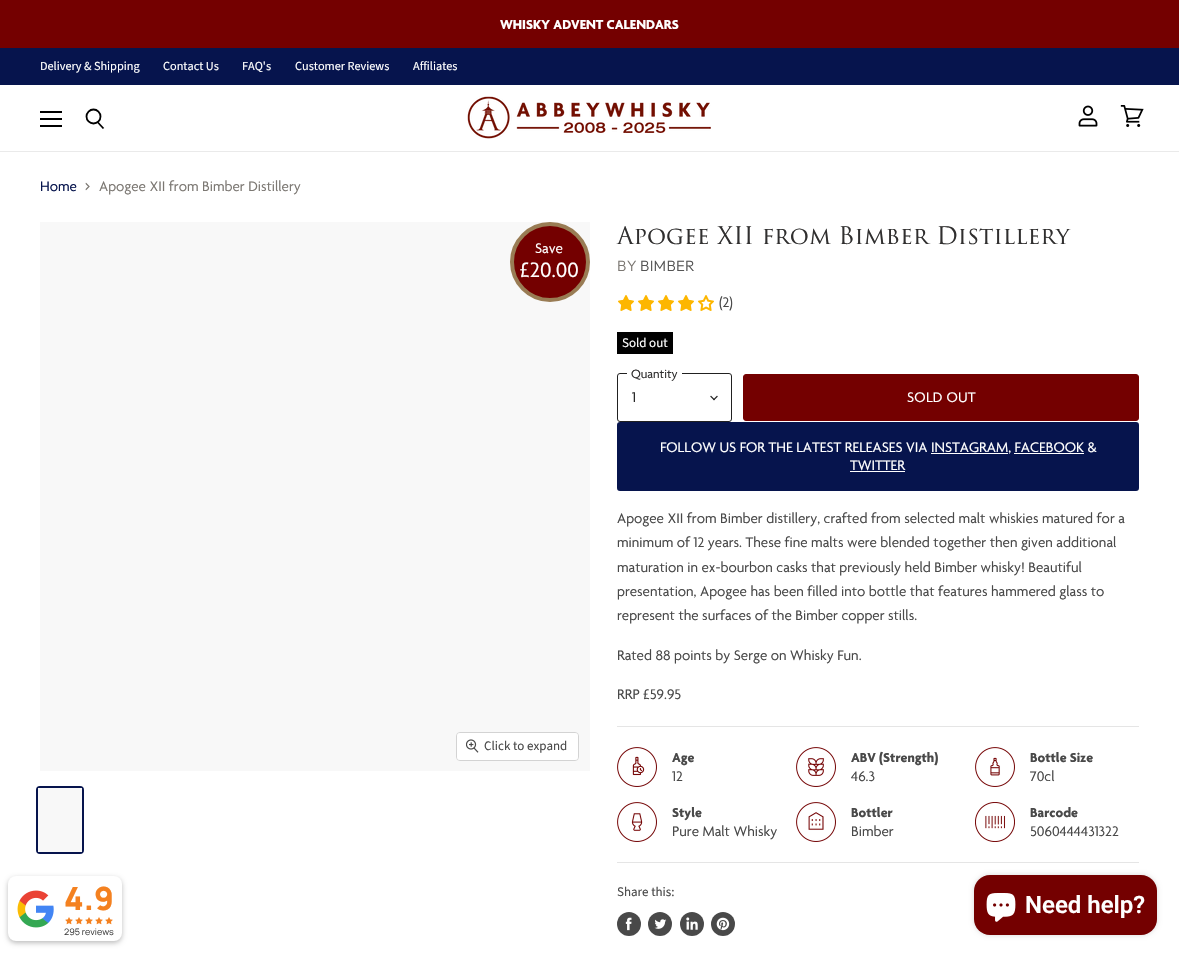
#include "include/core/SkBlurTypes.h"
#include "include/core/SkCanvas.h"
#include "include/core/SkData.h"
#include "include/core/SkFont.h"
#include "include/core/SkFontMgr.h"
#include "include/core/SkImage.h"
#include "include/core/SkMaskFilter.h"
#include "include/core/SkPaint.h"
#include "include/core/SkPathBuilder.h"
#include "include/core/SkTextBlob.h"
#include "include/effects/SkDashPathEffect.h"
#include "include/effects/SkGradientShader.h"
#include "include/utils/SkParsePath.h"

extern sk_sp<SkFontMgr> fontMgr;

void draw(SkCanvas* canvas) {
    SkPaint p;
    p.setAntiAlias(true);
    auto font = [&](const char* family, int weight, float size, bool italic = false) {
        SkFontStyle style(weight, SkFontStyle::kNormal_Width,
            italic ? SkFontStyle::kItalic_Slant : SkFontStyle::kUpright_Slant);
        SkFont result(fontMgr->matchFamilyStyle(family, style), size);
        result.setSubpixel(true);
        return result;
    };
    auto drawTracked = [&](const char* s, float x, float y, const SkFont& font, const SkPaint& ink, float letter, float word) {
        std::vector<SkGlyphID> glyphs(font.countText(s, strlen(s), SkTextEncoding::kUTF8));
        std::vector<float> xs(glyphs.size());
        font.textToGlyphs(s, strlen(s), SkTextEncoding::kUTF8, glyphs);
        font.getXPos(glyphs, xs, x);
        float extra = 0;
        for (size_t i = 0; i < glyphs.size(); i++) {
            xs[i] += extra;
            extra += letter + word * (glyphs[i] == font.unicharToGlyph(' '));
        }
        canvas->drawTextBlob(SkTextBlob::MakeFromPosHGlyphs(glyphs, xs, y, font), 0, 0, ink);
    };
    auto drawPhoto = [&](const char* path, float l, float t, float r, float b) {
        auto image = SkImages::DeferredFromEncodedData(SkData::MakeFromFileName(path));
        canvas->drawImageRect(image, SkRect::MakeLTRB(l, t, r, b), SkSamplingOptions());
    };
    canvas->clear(0xFFFFFFFF);
    p.setColor(0xFF740000);
    canvas->drawRect(SkRect::MakeLTRB(0, 0, 1179, 48), p);
    auto font1 = font("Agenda", 700, 14);
    p.setColor(0xFFFFFFFF);
    canvas->drawString("WHISKY ADVENT CALENDARS", 500, 29, font1, p);
    p.setColor(0xFF06144D);
    canvas->drawRect(SkRect::MakeLTRB(0, 48, 1179, 85), p);
    auto font2 = font("Source Sans Pro", 400, 12.25f);
    p.setColor(0xFFFFFFFF);
    {
        const struct { const char* s; float x, y; } items[] = {
            {"Delivery & Shipping", 40, 70},
            {"Contact Us", 163, 70},
            {"FAQ's", 242, 70},
            {"Customer Reviews", 295, 70},
            {"Affiliates", 413, 70},
        };
        for (auto [s, x, y] : items) {
            canvas->drawString(s, x, y, font2, p);
        }
    }
    {
        const struct { float l, t, r, b; SkColor color; } items[] = {
            {0, 151, 1179, 152, 0xFFEAEAEA},
            {40, 111, 62, 113, 0xFF000000},
            {40, 118, 62, 120, 0xFF000000},
            {40, 125, 62, 127, 0xFF000000},
        };
        for (auto [l, t, r, b, color] : items) {
            p.setColor(color);
            canvas->drawRect(SkRect::MakeLTRB(l, t, r, b), p);
        }
    }
    p.setStyle(SkPaint::kStroke_Style);
    p.setStrokeWidth(1.8f);
    canvas->drawPath(SkPathBuilder().moveTo(103.5f, 128.5f).lineTo(97.5f, 122).detach(), p);
    canvas->drawCircle(93.5f, 116.5f, 7, p);
    drawPhoto("media/1.png", 467, 96, 711, 139);
    drawPhoto("media/2.png", 1078, 105, 1098, 127);
    drawPhoto("media/3.png", 1120, 105, 1144, 127);
    auto font3 = font("Agenda", 400, 15);
    p.setStyle(SkPaint::kFill_Style);
    p.setColor(0xFF06144D);
    canvas->drawString("Home", 40, 191, font3, p);
    canvas->save();
    canvas->clipPath(SkPathBuilder().moveTo(85.5f, 190.5f).lineTo(85.5f, 182.5f).lineTo(90.5f, 182.5f).lineTo(90.5f, 190.5f).close().detach(), true);
    p.setStyle(SkPaint::kStroke_Style);
    p.setStrokeWidth(1.2f);
    p.setColor(0xFF7C7873);
    canvas->drawPath(SkPathBuilder().moveTo(85.5f, 190).lineTo(89, 186.5f).lineTo(85.5f, 183).detach(), p);
    canvas->restore();
    p.setStyle(SkPaint::kFill_Style);
    canvas->drawString("Apogee XII from Bimber Distillery", 99, 191, font3, p);
    p.setColor(0xFFF8F8F8);
    canvas->drawRect(SkRect::MakeLTRB(40, 222, 590, 771), p);
    p.setColor(0xFF740000);
    canvas->drawCircle(550, 262, 38, p);
    p.setStyle(SkPaint::kStroke_Style);
    p.setStrokeWidth(4);
    p.setColor(0xFF997C54);
    canvas->drawCircle(550, 262, 38, p);
    p.setStyle(SkPaint::kFill_Style);
    p.setColor(0xFFFFFFFF);
    canvas->drawString("Save", 535, 253, font3, p);
    auto font4 = font("Agenda", 400, 22.5f);
    canvas->drawString("£20.00", 520, 277, font4, p);
    p.setStyle(SkPaint::kStroke_Style);
    p.setStrokeWidth(1);
    p.setColor(0xFFD3D3D3);
    canvas->drawRoundRect(SkRect::MakeLTRB(456.5f, 732.5f, 578.5f, 760.5f), 3.5f, 3.5f, p);
    p.setStyle(SkPaint::kFill_Style);
    p.setColor(0xE6FFFFFF);
    canvas->drawRoundRect(SkRect::MakeLTRB(457, 733, 578, 760), 3, 3, p);
    drawPhoto("media/4.png", 466, 739, 479, 753);
    auto font5 = font("Source Sans Pro", 400, 13);
    p.setColor(0xFF494949);
    canvas->drawString("Click to expand", 484, 750, font5, p);
    p.setStyle(SkPaint::kStroke_Style);
    p.setStrokeWidth(2);
    p.setColor(0xFF06144D);
    canvas->drawRoundRect(SkRect::MakeLTRB(37, 787, 83, 853), 3, 3, p);
    p.setStyle(SkPaint::kFill_Style);
    p.setColor(0xFFF8F8F8);
    canvas->drawRect(SkRect::MakeLTRB(38, 788, 82, 852), p);
    auto font6 = font("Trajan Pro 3", 400, 23.6f);
    p.setColor(0xFF302F2F);
    canvas->drawString("Apogee XII from Bimber Distillery", 617, 244, font6, p);
    auto font7 = font("Outfit", 300, 15);
    p.setColor(0xFF7C7873);
    drawTracked("BY", 617, 271, font7, p, 0.25f, 0);
    p.setColor(0xFF555555);
    drawTracked("BIMBER", 640, 271, font7, p, 0.25f, 0);
    drawPhoto("media/5.png", 618, 295, 634, 311);
    drawPhoto("media/5.png", 638, 295, 654, 311);
    drawPhoto("media/5.png", 658, 295, 674, 311);
    drawPhoto("media/5.png", 678, 295, 694, 311);
    drawPhoto("media/5.png", 698, 295, 714, 311);
    drawPhoto("media/6.png", 619, 297, 633, 310);
    drawPhoto("media/6.png", 639, 297, 653, 310);
    drawPhoto("media/6.png", 659, 297, 673, 310);
    drawPhoto("media/6.png", 679, 297, 693, 310);
    p.setColor(0xFF494949);
    canvas->drawString("(2)", 719, 307, font3, p);
    p.setColor(0xFF000000);
    canvas->drawRect(SkRect::MakeLTRB(617, 332, 673, 354), p);
    p.setColor(0xFFFFFFFF);
    canvas->drawString("Sold out", 622, 347, font5, p);
    p.setStyle(SkPaint::kStroke_Style);
    p.setStrokeWidth(1);
    p.setColor(0xFF212121);
    canvas->drawRoundRect(SkRect::MakeLTRB(617.5f, 373.5f, 731.5f, 421.5f), 2.5f, 2.5f, p);
    p.setStyle(SkPaint::kFill_Style);
    p.setColor(0xFFFFFFFF);
    canvas->drawRect(SkRect::MakeLTRB(627, 373, 682, 374), p);
    auto font8 = font("Agenda", 400, 13);
    p.setColor(0xFF302F2F);
    canvas->drawString("Quantity", 631, 378, font8, p);
    p.setColor(0xFF212121);
    canvas->drawString("1", 632, 402, font3, p);
    drawPhoto("media/7.png", 710, 395, 718, 401);
    p.setColor(0xFF740000);
    canvas->drawRoundRect(SkRect::MakeLTRB(743.5f, 374.5f, 1138.5f, 420.5f), 2.5f, 2.5f, p);
    p.setStyle(SkPaint::kStroke_Style);
    canvas->drawRoundRect(SkRect::MakeLTRB(743.5f, 374.5f, 1138.5f, 420.5f), 2.5f, 2.5f, p);
    p.setStyle(SkPaint::kFill_Style);
    p.setColor(0xFFFFFFFF);
    drawTracked("SOLD OUT", 907, 402, font3, p, 0.25f, 0);
    p.setColor(0xFF06144D);
    canvas->drawRoundRect(SkRect::MakeLTRB(618, 423, 1138, 490), 2, 2, p);
    p.setStyle(SkPaint::kStroke_Style);
    p.setStrokeWidth(2);
    canvas->drawRoundRect(SkRect::MakeLTRB(618, 423, 1138, 490), 2, 2, p);
    p.setStyle(SkPaint::kFill_Style);
    p.setColor(0xFFFFFFFF);
    canvas->drawString("FOLLOW US FOR THE LATEST RELEASES VIA INSTAGRAM, FACEBOOK &", 660, 452, font3, p);
    canvas->drawRect(SkRect::MakeLTRB(931, 453, 1008, 454), p);
    canvas->drawRect(SkRect::MakeLTRB(1014, 453, 1084, 454), p);
    canvas->drawString("TWITTER", 850, 470, font3, p);
    canvas->drawRect(SkRect::MakeLTRB(850, 471, 905, 472), p);
    p.setColor(0xFF494949);
    {
        const struct { const char* s; float x, y; } items[] = {
            {"Apogee XII from Bimber distillery, crafted from selected malt whiskies matured for a", 617, 523},
            {"minimum of 12 years. These fine malts were blended together then given additional", 617, 547},
            {"maturation in ex-bourbon casks that previously held Bimber whisky! Beautiful", 617, 572},
            {"presentation, Apogee has been filled into bottle that features hammered glass to", 617, 596},
            {"represent the surfaces of the Bimber copper stills.", 617, 620},
            {"Rated 88 points by Serge on Whisky Fun.", 617, 660},
            {"RRP £59.95", 617, 699},
        };
        for (auto [s, x, y] : items) {
            canvas->drawString(s, x, y, font3, p);
        }
    }
    p.setColor(0xFFE5E5E5);
    canvas->drawRect(SkRect::MakeLTRB(617, 726, 1139, 727), p);
    drawPhoto("media/8.png", 617, 747, 657, 787);
    p.setColor(0xFF494949);
    canvas->drawString("Age", 672, 762, font1, p);
    canvas->drawString("12", 672, 781, font3, p);
    drawPhoto("media/9.png", 796, 747, 836, 787);
    canvas->drawString("ABV (Strength)", 851, 762, font1, p);
    canvas->drawString("46.3", 851, 781, font3, p);
    drawPhoto("media/10.png", 975, 747, 1015, 787);
    canvas->drawString("Bottle Size", 1030, 762, font1, p);
    canvas->drawString("70cl", 1030, 781, font3, p);
    drawPhoto("media/11.png", 617, 802, 657, 842);
    canvas->drawString("Style", 672, 817, font1, p);
    canvas->drawString("Pure Malt Whisky", 672, 836, font3, p);
    drawPhoto("media/12.png", 796, 802, 836, 842);
    canvas->drawString("Bottler", 851, 817, font1, p);
    canvas->drawString("Bimber", 851, 836, font3, p);
    drawPhoto("media/13.png", 975, 802, 1015, 842);
    canvas->drawString("Barcode", 1030, 817, font1, p);
    canvas->drawString("5060444431322", 1030, 836, font3, p);
    p.setColor(0xFFE5E5E5);
    canvas->drawRect(SkRect::MakeLTRB(617, 862, 1139, 863), p);
    p.setColor(0xFF494949);
    canvas->drawString("Share this:", 617, 896, font5, p);
    canvas->drawCircle(629, 924, 12, p);
    drawPhoto("media/14.png", 625, 917, 632, 931);
    canvas->drawCircle(660, 924, 12, p);
    drawPhoto("media/15.png", 654, 919, 667, 929);
    canvas->drawCircle(692, 924, 12, p);
    drawPhoto("media/16.png", 686, 917, 698, 930);
    canvas->drawCircle(723, 924, 12, p);
    drawPhoto("media/17.png", 716, 917, 730, 931);
    p.setColor(0x42000000);
    p.setMaskFilter(SkMaskFilter::MakeBlur(kNormal_SkBlurStyle, 2.5f));
    canvas->drawRoundRect(SkRect::MakeLTRB(8, 878, 122, 943), 8, 8, p);
    p.setMaskFilter(nullptr);
    p.setColor(0xFFFFFFFF);
    canvas->drawRoundRect(SkRect::MakeLTRB(8, 876, 122, 941), 8, 8, p);
    drawPhoto("media/18.png", 17, 890, 54, 928);
    auto font9 = font("Manrope", 800, 32);
    p.setColor(0xFFF48120);
    canvas->drawString("4.9", 64, 910, font9, p);
    drawPhoto("media/19.png", 65, 917, 73, 925);
    drawPhoto("media/19.png", 75, 917, 83, 925);
    drawPhoto("media/19.png", 85, 917, 93, 925);
    drawPhoto("media/19.png", 95, 917, 103, 925);
    drawPhoto("media/19.png", 105, 917, 113, 925);
    auto font10 = font("Manrope", 400, 9);
    p.setColor(0xFF404040);
    canvas->drawString("295 reviews", 64, 935, font10, p);
    p.setColor(0x26000000);
    p.setMaskFilter(SkMaskFilter::MakeBlur(kNormal_SkBlurStyle, 2.5f));
    canvas->drawRoundRect(SkRect::MakeLTRB(974, 875, 1157, 935), 16, 16, p);
    p.setMaskFilter(nullptr);
    p.setColor(0xFF740000);
    canvas->drawRoundRect(SkRect::MakeLTRB(974, 875, 1157, 935), 16, 16, p);
    drawPhoto("media/20.png", 986, 893, 1016, 922);
    auto font11 = font("Roboto", 600, 24);
    p.setColor(0xFFFFFFFF);
    canvas->drawString("Need help?", 1025, 913, font11, p);
}
